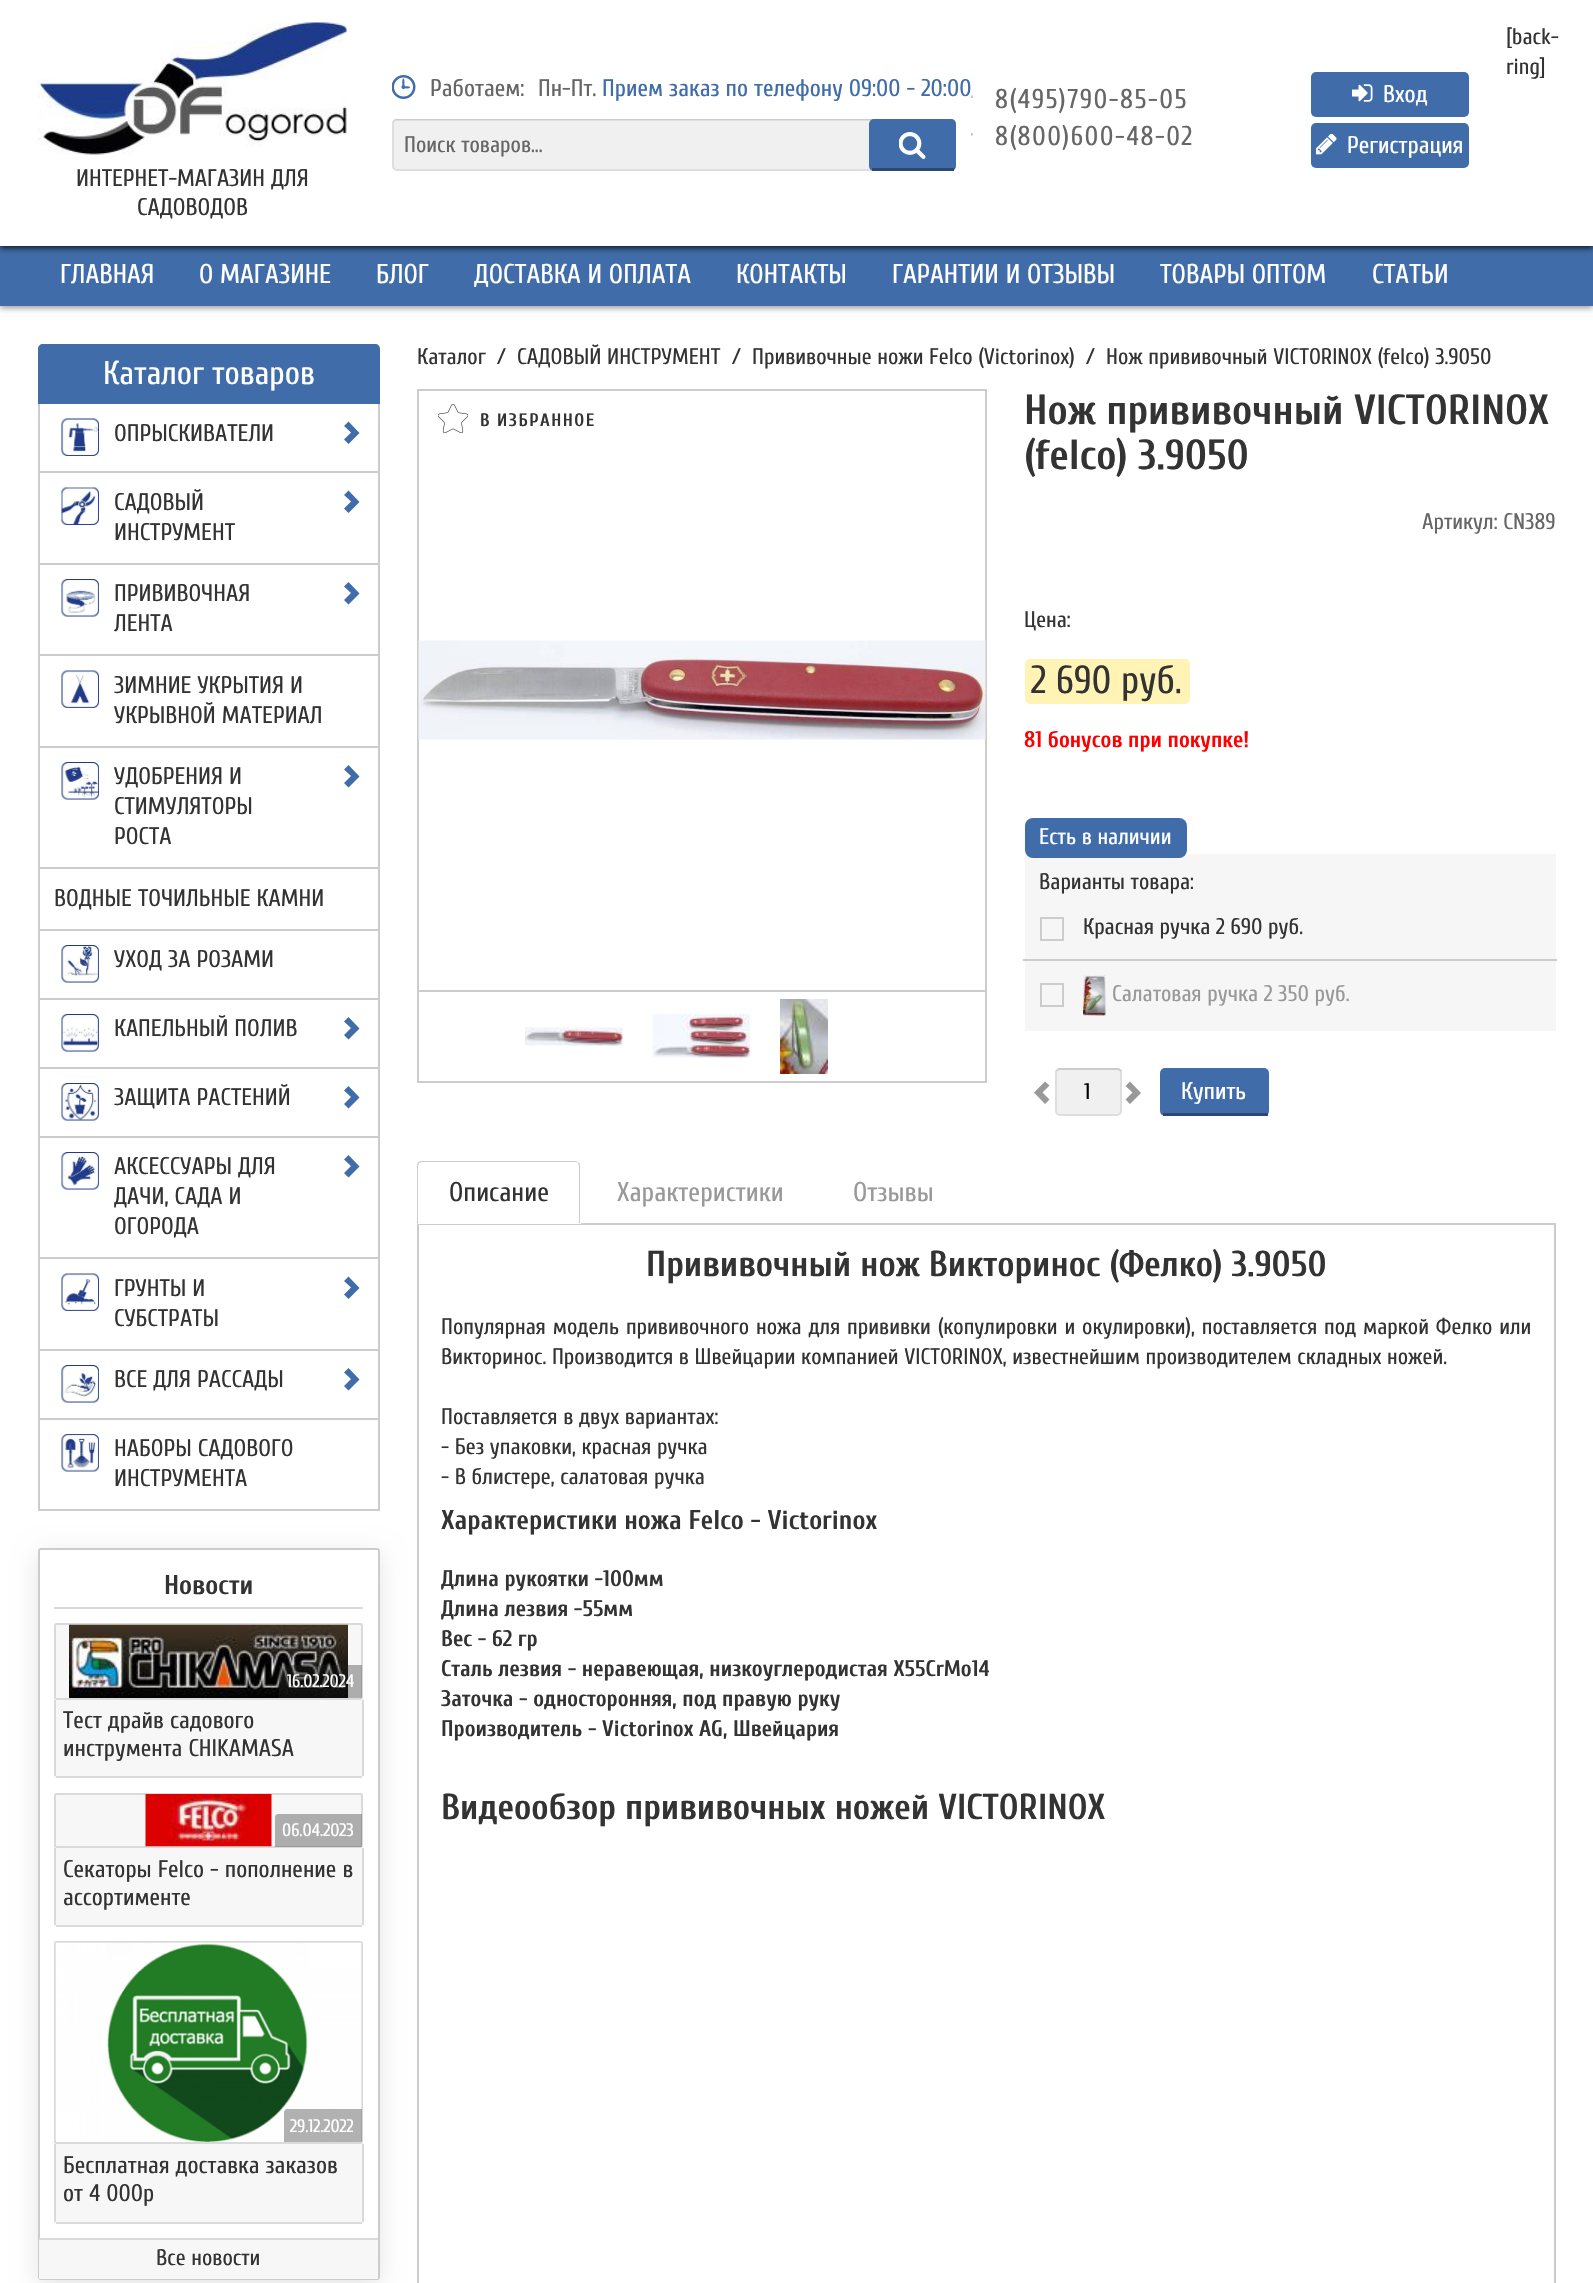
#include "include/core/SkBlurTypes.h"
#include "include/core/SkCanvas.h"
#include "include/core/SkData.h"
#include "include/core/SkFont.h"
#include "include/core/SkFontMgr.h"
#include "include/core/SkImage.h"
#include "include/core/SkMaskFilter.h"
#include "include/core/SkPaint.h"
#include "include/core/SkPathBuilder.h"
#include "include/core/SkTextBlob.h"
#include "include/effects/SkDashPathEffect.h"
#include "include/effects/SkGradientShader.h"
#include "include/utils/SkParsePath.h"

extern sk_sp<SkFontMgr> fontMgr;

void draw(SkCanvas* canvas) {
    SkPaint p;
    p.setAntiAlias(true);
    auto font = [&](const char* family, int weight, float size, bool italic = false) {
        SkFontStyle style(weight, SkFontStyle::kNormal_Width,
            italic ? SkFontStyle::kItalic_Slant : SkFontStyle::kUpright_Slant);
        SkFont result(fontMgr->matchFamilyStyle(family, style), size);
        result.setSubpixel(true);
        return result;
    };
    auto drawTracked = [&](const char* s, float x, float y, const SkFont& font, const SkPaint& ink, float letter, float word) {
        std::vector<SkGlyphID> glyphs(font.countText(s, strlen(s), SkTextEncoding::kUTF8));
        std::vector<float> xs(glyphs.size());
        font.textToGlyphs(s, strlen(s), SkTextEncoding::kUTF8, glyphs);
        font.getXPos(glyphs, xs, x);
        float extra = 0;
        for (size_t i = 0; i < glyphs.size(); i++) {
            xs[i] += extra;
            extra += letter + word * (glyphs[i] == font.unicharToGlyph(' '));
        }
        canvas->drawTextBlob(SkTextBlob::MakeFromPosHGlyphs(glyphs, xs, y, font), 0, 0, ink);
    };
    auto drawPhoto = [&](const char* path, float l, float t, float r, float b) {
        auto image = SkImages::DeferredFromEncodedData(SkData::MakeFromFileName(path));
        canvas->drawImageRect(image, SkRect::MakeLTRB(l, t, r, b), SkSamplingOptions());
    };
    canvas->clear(0xFFFFFFFF);
    p.setColor(0x66000000);
    p.setMaskFilter(SkMaskFilter::MakeBlur(kNormal_SkBlurStyle, 3));
    canvas->drawRect(SkRect::MakeLTRB(0, 248, 1593, 308), p);
    p.setMaskFilter(nullptr);
    p.setColor(0xFF406CA9);
    canvas->drawRect(SkRect::MakeLTRB(0, 246, 1593, 306), p);
    p.setColor(0xCC000000);
    p.setMaskFilter(SkMaskFilter::MakeBlur(kNormal_SkBlurStyle, 3));
    canvas->drawRect(SkRect::MakeLTRB(0, 2, 1593, 248), p);
    p.setMaskFilter(nullptr);
    p.setColor(0xFFFFFFFF);
    canvas->drawRect(SkRect::MakeLTRB(0, 0, 1593, 246), p);
    auto font1 = font("Cuprum", 400, 22.5f);
    p.setColor(0xFF333333);
    canvas->drawString("[back-", 1506, 44, font1, p);
    canvas->drawString("ring]", 1506, 74, font1, p);
    drawPhoto("media/1.png", 392, 75, 416, 99);
    auto font2 = font("Cuprum", 400, 24);
    p.setColor(0xFF666666);
    canvas->drawString("Работаем:", 430, 96, font2, p);
    canvas->drawString("Пн-Пт.", 538, 96, font2, p);
    p.setColor(0xFF406CA9);
    canvas->drawString("Прием заказ по телефону 09:00 - 20:00", 602, 96, font2, p);
    p.setColor(0xFFF0F0F0);
    canvas->drawRoundRect(SkRect::MakeLTRB(393, 120, 955, 170), 4, 4, p);
    p.setStyle(SkPaint::kStroke_Style);
    p.setStrokeWidth(2);
    p.setColor(0xFFDEDEDE);
    canvas->drawRoundRect(SkRect::MakeLTRB(393, 120, 955, 170), 4, 4, p);
    p.setStyle(SkPaint::kFill_Style);
    p.setColor(0xFFCCCCCC);
    canvas->drawPath(SkPathBuilder().moveTo(396, 120).lineTo(951, 120).cubicTo(953, 120, 956, 122, 956, 124).cubicTo(956, 121, 954, 119, 951, 119).lineTo(397, 119).cubicTo(394, 119, 392, 121, 392, 124).cubicTo(392, 122, 394, 120, 396, 120).close().detach(), p);
    p.setColor(0xFF666666);
    canvas->drawString("Поиск товаров...", 404, 152, font1, p);
    p.setColor(0xFF406CA9);
    canvas->drawRoundRect(SkRect::MakeLTRB(869, 119, 956, 171), 5, 5, p);
    p.setColor(0xFF2B4972);
    canvas->drawRect(SkRect::MakeLTRB(872, 168, 954, 171), p);
    drawPhoto("media/2.png", 899, 132, 926, 159);
    drawPhoto("media/3.png", 971, 95, 973, 98);
    auto font3 = font("Cuprum", 400, 27);
    p.setColor(0xFF666666);
    drawTracked("8(495)790-85-05", 995, 108, font3, p, 1.5f, 0);
    drawPhoto("media/4.png", 971, 133, 973, 136);
    drawTracked("8(800)600-48-02", 995, 145, font3, p, 1.5f, 0);
    p.setColor(0xFF406CA9);
    canvas->drawRoundRect(SkRect::MakeLTRB(1311, 72, 1469, 117), 5, 5, p);
    drawPhoto("media/5.png", 1352, 84, 1373, 102);
    p.setColor(0xFFFFFFFF);
    canvas->drawString("Вход", 1383, 102, font2, p);
    p.setColor(0xFF406CA9);
    canvas->drawRoundRect(SkRect::MakeLTRB(1311, 123, 1469, 168), 5, 5, p);
    drawPhoto("media/6.png", 1316, 134, 1337, 155);
    p.setColor(0xFFFFFFFF);
    canvas->drawString("Регистрация", 1347, 153, font2, p);
    drawPhoto("media/7.png", 37, 22, 347, 155);
    p.setColor(0xFF333333);
    canvas->drawString("ИНТЕРНЕТ-МАГАЗИН ДЛЯ", 76, 186, font2, p);
    canvas->drawString("САДОВОДОВ", 137, 215, font2, p);
    p.setColor(0xFFFFFFFF);
    {
        const struct { const char* s; float x, y; } items[] = {
            {"ГЛАВНАЯ", 60, 283},
            {"О МАГАЗИНЕ", 199, 283},
            {"БЛОГ", 376, 283},
            {"ДОСТАВКА И ОПЛАТА", 474, 283},
            {"КОНТАКТЫ", 736, 283},
            {"ГАРАНТИИ И ОТЗЫВЫ", 892, 283},
            {"ТОВАРЫ ОПТОМ", 1160, 283},
            {"СТАТЬИ", 1372, 283},
        };
        for (auto [s, x, y] : items) {
            canvas->drawString(s, x, y, font3, p);
        }
    }
    p.setColor(0xFF406CA9);
    canvas->drawPath(SkPathBuilder().moveTo(43, 344).lineTo(375, 344).cubicTo(378, 344, 380, 346, 380, 349).lineTo(380, 404).lineTo(38, 404).lineTo(38, 349).cubicTo(38, 346, 40, 344, 43, 344).close().detach(), p);
    auto font4 = font("Cuprum", 400, 33);
    p.setColor(0xFFFFFFFF);
    canvas->drawString("Каталог товаров", 103, 384, font4, p);
    {
        const struct { float l, t, r, b; SkColor color; } items[] = {
            {378, 404, 380, 564, 0xFFCCCCCC},
            {38, 471, 380, 473, 0xFFCCCCCC},
            {38, 404, 40, 473, 0xFFCCCCCC},
        };
        for (auto [l, t, r, b, color] : items) {
            p.setColor(color);
            canvas->drawRect(SkRect::MakeLTRB(l, t, r, b), p);
        }
    }
    drawPhoto("media/8.png", 61, 418, 99, 456);
    p.setColor(0xFF333333);
    canvas->drawString("ОПРЫСКИВАТЕЛИ", 114, 441, font2, p);
    p.setColor(0xFF406CA9);
    canvas->drawPath(SkPathBuilder().moveTo(348.5f, 421.5f).lineTo(344, 426).lineTo(351, 432.5f).lineTo(344, 439.5f).lineTo(348.5f, 444).lineTo(359.5f, 433).close().detach(), p);
    p.setColor(0xFFCCCCCC);
    canvas->drawRect(SkRect::MakeLTRB(38, 563, 380, 565), p);
    canvas->drawRect(SkRect::MakeLTRB(38, 473, 40, 564), p);
    drawPhoto("media/9.png", 61, 487, 99, 525);
    p.setColor(0xFF333333);
    canvas->drawString("САДОВЫЙ", 114, 510, font2, p);
    canvas->drawString("ИНСТРУМЕНТ", 114, 540, font2, p);
    p.setColor(0xFF406CA9);
    canvas->drawPath(SkPathBuilder().moveTo(348.5f, 490.5f).lineTo(344, 495).lineTo(351, 501.5f).lineTo(344, 508.5f).lineTo(348.5f, 513).lineTo(359.5f, 502).close().detach(), p);
    {
        const struct { float l, t, r, b; SkColor color; } items[] = {
            {378, 564, 380, 747, 0xFFCCCCCC},
            {38, 654, 380, 656, 0xFFCCCCCC},
            {38, 564, 40, 656, 0xFFCCCCCC},
        };
        for (auto [l, t, r, b, color] : items) {
            p.setColor(color);
            canvas->drawRect(SkRect::MakeLTRB(l, t, r, b), p);
        }
    }
    drawPhoto("media/10.png", 61, 579, 99, 617);
    p.setColor(0xFF333333);
    canvas->drawString("ПРИВИВОЧНАЯ", 114, 601, font2, p);
    canvas->drawString("ЛЕНТА", 114, 631, font2, p);
    p.setColor(0xFF406CA9);
    canvas->drawPath(SkPathBuilder().moveTo(348.5f, 582).lineTo(344, 586.5f).lineTo(351, 593).lineTo(344, 600).lineTo(348.5f, 604.5f).lineTo(359.5f, 593.5f).close().detach(), p);
    p.setColor(0xFFCCCCCC);
    canvas->drawRect(SkRect::MakeLTRB(38, 746, 380, 748), p);
    canvas->drawRect(SkRect::MakeLTRB(38, 656, 40, 747), p);
    drawPhoto("media/11.png", 61, 670, 99, 708);
    p.setColor(0xFF333333);
    canvas->drawString("ЗИМНИЕ УКРЫТИЯ И", 114, 693, font2, p);
    canvas->drawString("УКРЫВНОЙ МАТЕРИАЛ", 114, 723, font2, p);
    {
        const struct { float l, t, r, b; SkColor color; } items[] = {
            {378, 747, 380, 930, 0xFFCCCCCC},
            {38, 867, 380, 869, 0xFFCCCCCC},
            {38, 747, 40, 869, 0xFFCCCCCC},
        };
        for (auto [l, t, r, b, color] : items) {
            p.setColor(color);
            canvas->drawRect(SkRect::MakeLTRB(l, t, r, b), p);
        }
    }
    drawPhoto("media/12.png", 61, 762, 99, 800);
    p.setColor(0xFF333333);
    {
        const struct { const char* s; float x, y; } items[] = {
            {"УДОБРЕНИЯ И", 114, 784},
            {"СТИМУЛЯТОРЫ", 114, 814},
            {"РОСТА", 114, 844},
        };
        for (auto [s, x, y] : items) {
            canvas->drawString(s, x, y, font2, p);
        }
    }
    p.setColor(0xFF406CA9);
    canvas->drawPath(SkPathBuilder().moveTo(348.5f, 765).lineTo(344, 769.5f).lineTo(351, 776).lineTo(344, 783).lineTo(348.5f, 787.5f).lineTo(359.5f, 776.5f).close().detach(), p);
    p.setColor(0xFFCCCCCC);
    canvas->drawRect(SkRect::MakeLTRB(38, 929, 380, 931), p);
    canvas->drawRect(SkRect::MakeLTRB(38, 869, 40, 930), p);
    p.setColor(0xFF333333);
    canvas->drawString("ВОДНЫЕ ТОЧИЛЬНЫЕ КАМНИ", 54, 906, font2, p);
    {
        const struct { float l, t, r, b; SkColor color; } items[] = {
            {378, 930, 380, 999, 0xFFCCCCCC},
            {38, 998, 380, 1000, 0xFFCCCCCC},
            {38, 930, 40, 999, 0xFFCCCCCC},
        };
        for (auto [l, t, r, b, color] : items) {
            p.setColor(color);
            canvas->drawRect(SkRect::MakeLTRB(l, t, r, b), p);
        }
    }
    drawPhoto("media/13.png", 61, 945, 99, 983);
    p.setColor(0xFF333333);
    canvas->drawString("УХОД ЗА РОЗАМИ", 114, 967, font2, p);
    {
        const struct { float l, t, r, b; SkColor color; } items[] = {
            {378, 999, 380, 1068, 0xFFCCCCCC},
            {38, 1067, 380, 1069, 0xFFCCCCCC},
            {38, 999, 40, 1068, 0xFFCCCCCC},
        };
        for (auto [l, t, r, b, color] : items) {
            p.setColor(color);
            canvas->drawRect(SkRect::MakeLTRB(l, t, r, b), p);
        }
    }
    drawPhoto("media/14.png", 61, 1014, 99, 1052);
    p.setColor(0xFF333333);
    canvas->drawString("КАПЕЛЬНЫЙ ПОЛИВ", 114, 1036, font2, p);
    p.setColor(0xFF406CA9);
    canvas->drawPath(SkPathBuilder().moveTo(348.5f, 1017).lineTo(344, 1021.5f).lineTo(351, 1028).lineTo(344, 1035).lineTo(348.5f, 1039.5f).lineTo(359.5f, 1028.5f).close().detach(), p);
    {
        const struct { float l, t, r, b; SkColor color; } items[] = {
            {378, 1068, 380, 1137, 0xFFCCCCCC},
            {38, 1136, 380, 1138, 0xFFCCCCCC},
            {38, 1068, 40, 1137, 0xFFCCCCCC},
        };
        for (auto [l, t, r, b, color] : items) {
            p.setColor(color);
            canvas->drawRect(SkRect::MakeLTRB(l, t, r, b), p);
        }
    }
    drawPhoto("media/15.png", 61, 1083, 99, 1121);
    p.setColor(0xFF333333);
    canvas->drawString("ЗАЩИТА РАСТЕНИЙ", 114, 1105, font2, p);
    p.setColor(0xFF406CA9);
    canvas->drawPath(SkPathBuilder().moveTo(348.5f, 1086).lineTo(344, 1090.5f).lineTo(351, 1097).lineTo(344, 1104).lineTo(348.5f, 1108.5f).lineTo(359.5f, 1097.5f).close().detach(), p);
    {
        const struct { float l, t, r, b; SkColor color; } items[] = {
            {378, 1137, 380, 1350, 0xFFCCCCCC},
            {38, 1257, 380, 1259, 0xFFCCCCCC},
            {38, 1137, 40, 1259, 0xFFCCCCCC},
        };
        for (auto [l, t, r, b, color] : items) {
            p.setColor(color);
            canvas->drawRect(SkRect::MakeLTRB(l, t, r, b), p);
        }
    }
    drawPhoto("media/16.png", 61, 1152, 99, 1190);
    p.setColor(0xFF333333);
    {
        const struct { const char* s; float x, y; } items[] = {
            {"АКСЕССУАРЫ ДЛЯ", 114, 1174},
            {"ДАЧИ, САДА И", 114, 1204},
            {"ОГОРОДА", 114, 1234},
        };
        for (auto [s, x, y] : items) {
            canvas->drawString(s, x, y, font2, p);
        }
    }
    p.setColor(0xFF406CA9);
    canvas->drawPath(SkPathBuilder().moveTo(348.5f, 1155).lineTo(344, 1159.5f).lineTo(351, 1166).lineTo(344, 1173).lineTo(348.5f, 1177.5f).lineTo(359.5f, 1166.5f).close().detach(), p);
    p.setColor(0xFFCCCCCC);
    canvas->drawRect(SkRect::MakeLTRB(38, 1349, 380, 1351), p);
    canvas->drawRect(SkRect::MakeLTRB(38, 1259, 40, 1350), p);
    drawPhoto("media/17.png", 61, 1273, 99, 1311);
    p.setColor(0xFF333333);
    canvas->drawString("ГРУНТЫ И", 114, 1296, font2, p);
    canvas->drawString("СУБСТРАТЫ", 114, 1326, font2, p);
    p.setColor(0xFF406CA9);
    canvas->drawPath(SkPathBuilder().moveTo(348.5f, 1276.5f).lineTo(344, 1281).lineTo(351, 1287.5f).lineTo(344, 1294.5f).lineTo(348.5f, 1299).lineTo(359.5f, 1288).close().detach(), p);
    {
        const struct { float l, t, r, b; SkColor color; } items[] = {
            {378, 1350, 380, 1419, 0xFFCCCCCC},
            {38, 1418, 380, 1420, 0xFFCCCCCC},
            {38, 1350, 40, 1419, 0xFFCCCCCC},
        };
        for (auto [l, t, r, b, color] : items) {
            p.setColor(color);
            canvas->drawRect(SkRect::MakeLTRB(l, t, r, b), p);
        }
    }
    drawPhoto("media/18.png", 61, 1365, 99, 1403);
    p.setColor(0xFF333333);
    canvas->drawString("ВСЕ ДЛЯ РАССАДЫ", 114, 1387, font2, p);
    p.setColor(0xFF406CA9);
    canvas->drawPath(SkPathBuilder().moveTo(348.5f, 1368).lineTo(344, 1372.5f).lineTo(351, 1379).lineTo(344, 1386).lineTo(348.5f, 1390.5f).lineTo(359.5f, 1379.5f).close().detach(), p);
    {
        const struct { float l, t, r, b; SkColor color; } items[] = {
            {378, 1419, 380, 1511, 0xFFCCCCCC},
            {38, 1509, 380, 1511, 0xFFCCCCCC},
            {38, 1419, 40, 1511, 0xFFCCCCCC},
        };
        for (auto [l, t, r, b, color] : items) {
            p.setColor(color);
            canvas->drawRect(SkRect::MakeLTRB(l, t, r, b), p);
        }
    }
    drawPhoto("media/19.png", 61, 1434, 99, 1472);
    p.setColor(0xFF333333);
    canvas->drawString("НАБОРЫ САДОВОГО", 114, 1456, font2, p);
    canvas->drawString("ИНСТРУМЕНТА", 114, 1486, font2, p);
    p.setColor(0x1A000000);
    p.setMaskFilter(SkMaskFilter::MakeBlur(kNormal_SkBlurStyle, 12));
    canvas->drawRoundRect(SkRect::MakeLTRB(38, 1554, 380, 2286), 3, 3, p);
    p.setMaskFilter(nullptr);
    p.setColor(0xFFFFFFFF);
    canvas->drawRoundRect(SkRect::MakeLTRB(39, 1549, 379, 2279), 2, 2, p);
    p.setStyle(SkPaint::kStroke_Style);
    p.setColor(0xFFCCCCCC);
    canvas->drawRoundRect(SkRect::MakeLTRB(39, 1549, 379, 2279), 2, 2, p);
    p.setStyle(SkPaint::kFill_Style);
    p.setColor(0xFFDADADA);
    canvas->drawRect(SkRect::MakeLTRB(54, 1607, 363, 1609), p);
    auto font5 = font("Cuprum", 700, 27);
    p.setColor(0xFF333333);
    canvas->drawString("Новости", 164, 1594, font5, p);
    p.setColor(0xFFF7F7F7);
    canvas->drawRect(SkRect::MakeLTRB(54, 1623, 363, 1778), p);
    p.setStyle(SkPaint::kStroke_Style);
    p.setColor(0xFFDADADA);
    canvas->drawRoundRect(SkRect::MakeLTRB(55, 1624, 362, 1699), 2, 2, p);
    drawPhoto("media/20.png", 69, 1624, 348, 1698);
    p.setStyle(SkPaint::kFill_Style);
    p.setColor(0x59232323);
    canvas->drawPath(SkPathBuilder().moveTo(282, 1665).lineTo(362, 1665).lineTo(362, 1696.5f).cubicTo(362, 1697.5f, 361.5f, 1698, 360.5f, 1698).lineTo(279, 1698).lineTo(279, 1668).cubicTo(279, 1666.5f, 280.5f, 1665, 282, 1665).close().detach(), p);
    auto font6 = font("Cuprum", 400, 18);
    p.setColor(0xFFFFFFFF);
    canvas->drawString("16.02.2024", 287, 1687, font6, p);
    {
        const struct { float l, t, r, b; SkColor color; } items[] = {
            {362, 1700, 364, 1776, 0xFFDADADA},
            {56, 1776, 362, 1778, 0xFFDADADA},
            {54, 1700, 56, 1776, 0xFFDADADA},
        };
        for (auto [l, t, r, b, color] : items) {
            p.setColor(color);
            canvas->drawRect(SkRect::MakeLTRB(l, t, r, b), p);
        }
    }
    p.setColor(0xFF333333);
    canvas->drawString("Тест драйв садового", 63, 1728, font2, p);
    canvas->drawString("инструмента CHIKAMASA", 63, 1756, font2, p);
    p.setColor(0xFFF7F7F7);
    canvas->drawRect(SkRect::MakeLTRB(54, 1793, 363, 1926), p);
    p.setStyle(SkPaint::kStroke_Style);
    p.setColor(0xFFDADADA);
    canvas->drawRoundRect(SkRect::MakeLTRB(55, 1794, 362, 1847), 2, 2, p);
    drawPhoto("media/21.png", 145, 1794, 272, 1847);
    p.setStyle(SkPaint::kFill_Style);
    p.setColor(0x59232323);
    canvas->drawPath(SkPathBuilder().moveTo(278, 1814).lineTo(362, 1814).lineTo(362, 1845.5f).cubicTo(362, 1846.5f, 361.5f, 1847, 360.5f, 1847).lineTo(275, 1847).lineTo(275, 1817).cubicTo(275, 1815.5f, 276.5f, 1814, 278, 1814).close().detach(), p);
    p.setColor(0xFFFFFFFF);
    canvas->drawString("06.04.2023", 282, 1836, font6, p);
    {
        const struct { float l, t, r, b; SkColor color; } items[] = {
            {362, 1848, 364, 1925, 0xFFDADADA},
            {56, 1925, 362, 1927, 0xFFDADADA},
            {54, 1848, 56, 1925, 0xFFDADADA},
        };
        for (auto [l, t, r, b, color] : items) {
            p.setColor(color);
            canvas->drawRect(SkRect::MakeLTRB(l, t, r, b), p);
        }
    }
    p.setColor(0xFF333333);
    canvas->drawString("Секаторы Felco - пополнение в", 63, 1877, font2, p);
    canvas->drawString("ассортименте", 63, 1905, font2, p);
    p.setColor(0xFFF7F7F7);
    canvas->drawRect(SkRect::MakeLTRB(54, 1941, 363, 2223), p);
    p.setStyle(SkPaint::kStroke_Style);
    p.setColor(0xFFDADADA);
    canvas->drawRoundRect(SkRect::MakeLTRB(55, 1942, 362, 2143), 2, 2, p);
    drawPhoto("media/22.png", 55, 1942, 362, 2142);
    p.setStyle(SkPaint::kFill_Style);
    p.setColor(0x59232323);
    canvas->drawPath(SkPathBuilder().moveTo(287, 2109).lineTo(362, 2109).lineTo(362, 2140.5f).cubicTo(362, 2141.5f, 361.5f, 2142, 360.5f, 2142).lineTo(284, 2142).lineTo(284, 2112).cubicTo(284, 2110.5f, 285.5f, 2109, 287, 2109).close().detach(), p);
    p.setColor(0xFFFFFFFF);
    canvas->drawString("29.12.2022", 290, 2132, font6, p);
    {
        const struct { float l, t, r, b; SkColor color; } items[] = {
            {362, 2144, 364, 2222, 0xFFDADADA},
            {56, 2222, 362, 2224, 0xFFDADADA},
            {54, 2144, 56, 2222, 0xFFDADADA},
        };
        for (auto [l, t, r, b, color] : items) {
            p.setColor(color);
            canvas->drawRect(SkRect::MakeLTRB(l, t, r, b), p);
        }
    }
    p.setColor(0xFF333333);
    canvas->drawString("Бесплатная доставка заказов", 63, 2173, font2, p);
    canvas->drawString("от 4 000р", 63, 2201, font2, p);
    p.setColor(0xFFF7F7F7);
    canvas->drawRect(SkRect::MakeLTRB(39, 2240, 378, 2279), p);
    p.setColor(0xFFDADADA);
    canvas->drawRect(SkRect::MakeLTRB(39, 2238, 378, 2240), p);
    p.setColor(0xFF333333);
    {
        const struct { const char* s; float x, y; } items[] = {
            {"Все новости", 156, 2265},
            {"Каталог", 417, 364},
            {"/", 497, 364},
            {"САДОВЫЙ ИНСТРУМЕНТ", 517, 364},
            {"/", 732, 364},
            {"Прививочные ножи Felco (Victorinox)", 752, 364},
            {"/", 1086, 364},
            {"Нож прививочный VICTORINOX (felco) 3.9050", 1106, 364},
        };
        for (auto [s, x, y] : items) {
            canvas->drawString(s, x, y, font1, p);
        }
    }
    p.setStyle(SkPaint::kStroke_Style);
    p.setColor(0xFFCCCCCC);
    canvas->drawRect(SkRect::MakeLTRB(418, 390, 986, 1082), p);
    drawPhoto("media/23.png", 438, 404, 468, 434);
    auto font7 = font("Cuprum", 700, 18);
    p.setStyle(SkPaint::kFill_Style);
    p.setColor(0xFF333333);
    drawTracked("В ИЗБРАННОЕ", 480, 426, font7, p, 1.5f, 0);
    drawPhoto("media/24.png", 418, 640, 986, 740);
    p.setColor(0xFFCCCCCC);
    canvas->drawRect(SkRect::MakeLTRB(419, 990, 986, 992), p);
    drawPhoto("media/25.png", 525, 1027, 623, 1046);
    drawPhoto("media/26.png", 652, 1014, 750, 1058);
    drawPhoto("media/27.png", 780, 999, 828, 1074);
    auto font8 = font("Cuprum", 700, 42);
    p.setColor(0xFF333333);
    canvas->drawString("Нож прививочный VICTORINOX", 1024, 424, font8, p);
    canvas->drawString("(felco) 3.9050", 1024, 469, font8, p);
    p.setColor(0xFF666666);
    canvas->drawString("Артикул: CN389", 1422, 529, font1, p);
    p.setColor(0xFF333333);
    canvas->drawString("Цена:", 1024, 627, font1, p);
    p.setColor(0xFFFFF3B5);
    canvas->drawRoundRect(SkRect::MakeLTRB(1025, 659, 1190, 704), 5, 5, p);
    auto font9 = font("Cuprum", 400, 39);
    p.setColor(0xFF333333);
    canvas->drawString("2 690 руб.", 1031, 693, font9, p);
    auto font10 = font("Cuprum", 700, 22.5f);
    p.setColor(0xFFFF0000);
    canvas->drawString("81 бонусов при покупке!", 1024, 747, font10, p);
    p.setColor(0xFFF6F6F6);
    canvas->drawRect(SkRect::MakeLTRB(1025, 854, 1556, 1031), p);
    p.setColor(0xFF406CA9);
    canvas->drawRoundRect(SkRect::MakeLTRB(1025, 818, 1187, 858), 8, 8, p);
    p.setColor(0xFFFFFFFF);
    canvas->drawString("Есть в наличии", 1039, 844, font1, p);
    p.setColor(0xFF333333);
    canvas->drawString("Варианты товара:", 1039, 889, font1, p);
    p.setColor(0xFFCCCCCC);
    canvas->drawRect(SkRect::MakeLTRB(1023, 959, 1557, 961), p);
    p.setStyle(SkPaint::kStroke_Style);
    canvas->drawRect(SkRect::MakeLTRB(1041, 918, 1063, 940), p);
    p.setStyle(SkPaint::kFill_Style);
    p.setColor(0xFF333333);
    canvas->drawString("Красная ручка 2 690 руб.", 1083, 934, font1, p);
    p.setStyle(SkPaint::kStroke_Style);
    p.setColor(0xFFCCCCCC);
    canvas->drawRect(SkRect::MakeLTRB(1041, 984, 1063, 1006), p);
    drawPhoto("media/28.png", 1083, 975, 1106, 1016);
    p.setStyle(SkPaint::kFill_Style);
    p.setColor(0xFF999999);
    canvas->drawString("Салатовая ручка 2 350 руб.", 1112, 1001, font1, p);
    canvas->drawPath(SkPathBuilder().moveTo(1045, 1104).lineTo(1049.5f, 1099.5f).lineTo(1042.5f, 1092.5f).lineTo(1049.5f, 1085.5f).lineTo(1045, 1081.5f).lineTo(1034, 1092.5f).close().detach(), p);
    p.setColor(0xFFF0F0F0);
    canvas->drawRoundRect(SkRect::MakeLTRB(1056, 1069, 1121, 1115), 4, 4, p);
    p.setStyle(SkPaint::kStroke_Style);
    p.setColor(0xFFDEDEDE);
    canvas->drawRoundRect(SkRect::MakeLTRB(1056, 1069, 1121, 1115), 4, 4, p);
    p.setStyle(SkPaint::kFill_Style);
    p.setColor(0xFFCCCCCC);
    canvas->drawPath(SkPathBuilder().moveTo(1059, 1070).lineTo(1118, 1070).cubicTo(1120, 1070, 1122, 1072, 1122, 1074).lineTo(1122, 1073).cubicTo(1122, 1070, 1120, 1068, 1117, 1068).lineTo(1060, 1068).cubicTo(1058, 1068, 1056, 1070, 1055, 1072).cubicTo(1056, 1071, 1058, 1070, 1059, 1070).close().detach(), p);
    p.setColor(0xFF000000);
    canvas->drawString("1", 1084, 1099, font1, p);
    p.setColor(0xFF999999);
    canvas->drawPath(SkPathBuilder().moveTo(1130, 1081.5f).lineTo(1125.5f, 1086).lineTo(1132.5f, 1092.5f).lineTo(1125.5f, 1099.5f).lineTo(1130, 1104).lineTo(1141, 1093).close().detach(), p);
    p.setColor(0xFF406CA9);
    canvas->drawRoundRect(SkRect::MakeLTRB(1160, 1068, 1269, 1116), 5, 5, p);
    p.setColor(0xFF2B4972);
    canvas->drawRect(SkRect::MakeLTRB(1163, 1113, 1268, 1116), p);
    p.setColor(0xFFFFFFFF);
    canvas->drawString("Купить", 1181, 1099, font2, p);
    p.setStyle(SkPaint::kStroke_Style);
    p.setColor(0xFFCCCCCC);
    canvas->drawRect(SkRect::MakeLTRB(418, 1224, 1555, 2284), p);
    p.setStyle(SkPaint::kFill_Style);
    p.setColor(0xFFFFFFFF);
    canvas->drawPath(SkPathBuilder().moveTo(422, 1161).lineTo(576, 1161).cubicTo(579, 1161, 581, 1163, 581, 1166).lineTo(581, 1224).lineTo(417, 1224).lineTo(417, 1166).cubicTo(417, 1163, 419, 1161, 422, 1161).close().detach(), p);
    p.setColor(0xFFCCCCCC);
    canvas->drawPath(SkPathBuilder().moveTo(422, 1161).cubicTo(420, 1161, 419, 1162, 418, 1162).lineTo(419, 1163).lineTo(422, 1162).lineTo(577, 1162).lineTo(578, 1163).lineTo(579, 1163).cubicTo(578, 1162, 577, 1161, 576, 1161).close().detach(), p);
    canvas->drawPath(SkPathBuilder().moveTo(579, 1163).cubicTo(580, 1163, 580, 1165, 580, 1166).lineTo(580, 1224).lineTo(578, 1222).lineTo(579, 1222).lineTo(579, 1166).lineTo(578, 1163).close().detach(), p);
    p.setColor(0xFFFFFFFF);
    canvas->drawPath(SkPathBuilder().moveTo(580, 1224).lineTo(578, 1222).lineTo(419, 1222).lineTo(417, 1224).close().detach(), p);
    p.setColor(0xFFCCCCCC);
    canvas->drawPath(SkPathBuilder().moveTo(417, 1224).lineTo(419, 1222).lineTo(418, 1222).lineTo(418, 1166).lineTo(419, 1163).lineTo(418, 1162).cubicTo(418, 1163, 417, 1164, 417, 1166).close().detach(), p);
    p.setColor(0xFF333333);
    canvas->drawString("Описание", 449, 1201, font3, p);
    p.setColor(0xFF999999);
    canvas->drawString("Характеристики", 617, 1201, font3, p);
    canvas->drawString("Отзывы", 853, 1201, font3, p);
    auto font11 = font("Cuprum", 700, 36);
    p.setColor(0xFF333333);
    canvas->drawString("Прививочный нож Викторинос (Фелко) 3.9050", 646, 1276, font11, p);
    drawTracked("Популярная модель прививочного ножа для прививки (копулировки и окулировки), поставляется под маркой Фелко или", 441, 1334, font1, p, 0, 1.25f);
    {
        const struct { const char* s; float x, y; } items[] = {
            {"Викторинос. Производится в Швейцарии компанией VICTORINOX, известнейшим производителем складных ножей.", 441, 1364},
            {"Поставляется в двух вариантах:", 441, 1424},
            {"- Без упаковки, красная ручка", 441, 1454},
            {"- В блистере, салатовая ручка", 441, 1484},
        };
        for (auto [s, x, y] : items) {
            canvas->drawString(s, x, y, font1, p);
        }
    }
    canvas->drawString("Характеристики ножа Felco - Victorinox", 441, 1529, font5, p);
    {
        const struct { const char* s; float x, y; } items[] = {
            {"Длина рукоятки -100мм", 441, 1586},
            {"Длина лезвия -55мм", 441, 1616},
            {"Вес - 62 гр", 441, 1646},
            {"Сталь лезвия - неравеющая, низкоуглеродистая X55CrMo14", 441, 1676},
            {"Заточка - односторонняя, под правую руку", 441, 1706},
            {"Производитель - Victorinox AG, Швейцария", 441, 1736},
        };
        for (auto [s, x, y] : items) {
            canvas->drawString(s, x, y, font10, p);
        }
    }
    canvas->drawString("Видеообзор прививочных ножей VICTORINOX", 441, 1819, font11, p);
}
